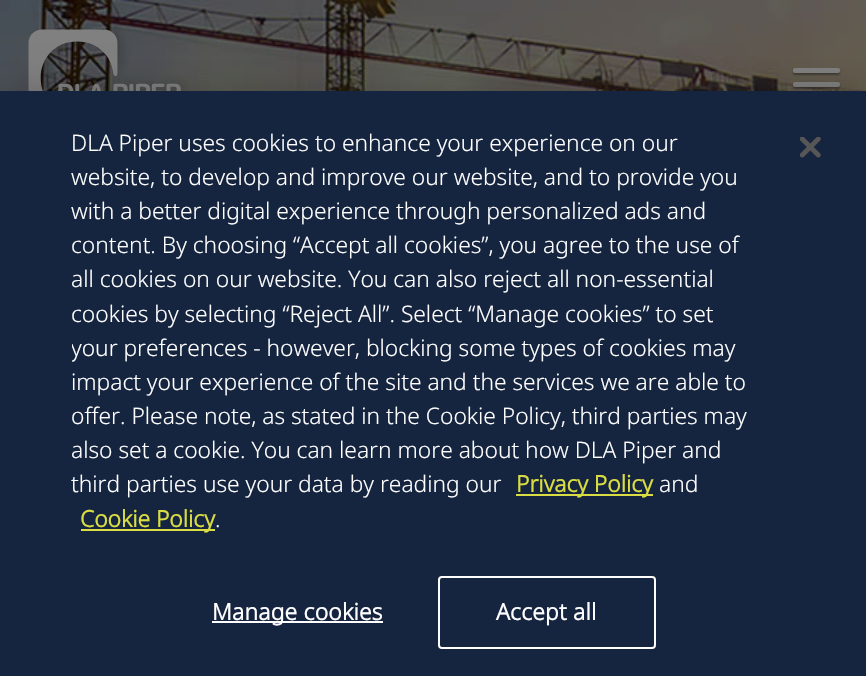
#include "include/core/SkBlurTypes.h"
#include "include/core/SkCanvas.h"
#include "include/core/SkData.h"
#include "include/core/SkFont.h"
#include "include/core/SkFontMgr.h"
#include "include/core/SkImage.h"
#include "include/core/SkMaskFilter.h"
#include "include/core/SkPaint.h"
#include "include/core/SkPathBuilder.h"
#include "include/core/SkTextBlob.h"
#include "include/effects/SkDashPathEffect.h"
#include "include/effects/SkGradientShader.h"
#include "include/utils/SkParsePath.h"

extern sk_sp<SkFontMgr> fontMgr;

void draw(SkCanvas* canvas) {
    SkPaint p;
    p.setAntiAlias(true);
    auto font = [&](const char* family, int weight, float size, bool italic = false) {
        SkFontStyle style(weight, SkFontStyle::kNormal_Width,
            italic ? SkFontStyle::kItalic_Slant : SkFontStyle::kUpright_Slant);
        SkFont result(fontMgr->matchFamilyStyle(family, style), size);
        result.setSubpixel(true);
        return result;
    };
    auto drawTracked = [&](const char* s, float x, float y, const SkFont& font, const SkPaint& ink, float letter, float word) {
        std::vector<SkGlyphID> glyphs(font.countText(s, strlen(s), SkTextEncoding::kUTF8));
        std::vector<float> xs(glyphs.size());
        font.textToGlyphs(s, strlen(s), SkTextEncoding::kUTF8, glyphs);
        font.getXPos(glyphs, xs, x);
        float extra = 0;
        for (size_t i = 0; i < glyphs.size(); i++) {
            xs[i] += extra;
            extra += letter + word * (glyphs[i] == font.unicharToGlyph(' '));
        }
        canvas->drawTextBlob(SkTextBlob::MakeFromPosHGlyphs(glyphs, xs, y, font), 0, 0, ink);
    };
    auto drawPhoto = [&](const char* path, float l, float t, float r, float b) {
        auto image = SkImages::DeferredFromEncodedData(SkData::MakeFromFileName(path));
        canvas->drawImageRect(image, SkRect::MakeLTRB(l, t, r, b), SkSamplingOptions());
    };
    canvas->clear(0xFFFFFFFF);
    drawPhoto("media/1.png", 0, 0, 866, 91);
    drawPhoto("media/2.png", 28, 28, 188, 91);
    p.setColor(0x57000000);
    p.setMaskFilter(SkMaskFilter::MakeBlur(kNormal_SkBlurStyle, 1));
    canvas->drawRoundRect(SkRect::MakeLTRB(793, 70, 840, 75), 2, 2, p);
    p.setMaskFilter(nullptr);
    p.setColor(0xFF808080);
    canvas->drawRoundRect(SkRect::MakeLTRB(793, 68, 840, 73), 2, 2, p);
    p.setColor(0x57000000);
    p.setMaskFilter(SkMaskFilter::MakeBlur(kNormal_SkBlurStyle, 1));
    canvas->drawRoundRect(SkRect::MakeLTRB(793, 84, 840, 89), 2, 2, p);
    p.setMaskFilter(nullptr);
    p.setColor(0xFF808080);
    canvas->drawRoundRect(SkRect::MakeLTRB(793, 82, 840, 87), 2, 2, p);
    p.setColor(0x33000000);
    p.setMaskFilter(SkMaskFilter::MakeBlur(kNormal_SkBlurStyle, 16));
    canvas->drawRect(SkRect::MakeLTRB(0, 91, 866, 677), p);
    p.setMaskFilter(nullptr);
    p.setColor(0xFF16253F);
    canvas->drawRect(SkRect::MakeLTRB(0, 91, 866, 676), p);
    auto font1 = font("Noto Sans", 300, 22.75f);
    p.setColor(0xFFFFFFFF);
    {
        const struct { const char* s; float x, y; } items[] = {
            {"DLA Piper uses cookies to enhance your experience on our", 71, 151},
            {"website, to develop and improve our website, and to provide you", 71, 185},
            {"with a better digital experience through personalized ads and", 71, 219},
            {"content. By choosing “Accept all cookies”, you agree to the use of", 71, 253},
            {"all cookies on our website. You can also reject all non-essential", 71, 287},
            {"cookies by selecting “Reject All”. Select “Manage cookies” to set", 71, 322},
        };
        for (auto [s, x, y] : items) {
            canvas->drawString(s, x, y, font1, p);
        }
    }
    canvas->save();
    canvas->clipRect(SkRect::MakeLTRB(72, 126, 756, 558));
    canvas->drawString("your preferences - however, blocking some types of cookies may", 71, 356, font1, p);
    canvas->restore();
    {
        const struct { const char* s; float x, y; } items[] = {
            {"impact your experience of the site and the services we are able to", 71, 390},
            {"offer. Please note, as stated in the Cookie Policy, third parties may", 71, 424},
            {"also set a cookie. You can learn more about how DLA Piper and", 71, 458},
            {"third parties use your data by reading our", 71, 492},
        };
        for (auto [s, x, y] : items) {
            canvas->drawString(s, x, y, font1, p);
        }
    }
    p.setColor(0xFFD9DC42);
    canvas->drawRect(SkRect::MakeLTRB(516, 494, 653, 496), p);
    auto font2 = font("Noto Sans", 700, 22.75f);
    canvas->drawString("Privacy Policy", 516, 492, font2, p);
    p.setColor(0xFFFFFFFF);
    canvas->drawString("and", 659, 492, font1, p);
    p.setColor(0xFFD9DC42);
    canvas->drawRect(SkRect::MakeLTRB(81, 529, 215, 531), p);
    canvas->drawString("Cookie Policy", 80, 527, font2, p);
    p.setColor(0xFFFFFFFF);
    canvas->drawString(".", 215, 527, font1, p);
    canvas->drawRect(SkRect::MakeLTRB(212, 621, 383, 623), p);
    drawTracked("Manage cookies", 212, 620, font2, p, 0.25f, 0);
    p.setStyle(SkPaint::kStroke_Style);
    p.setStrokeWidth(2);
    canvas->drawRoundRect(SkRect::MakeLTRB(439, 577, 655, 648), 3, 3, p);
    p.setStyle(SkPaint::kFill_Style);
    drawTracked("Accept all", 496, 620, font2, p, 0.25f, 0);
    drawPhoto("media/3.png", 800, 137, 821, 158);
}
